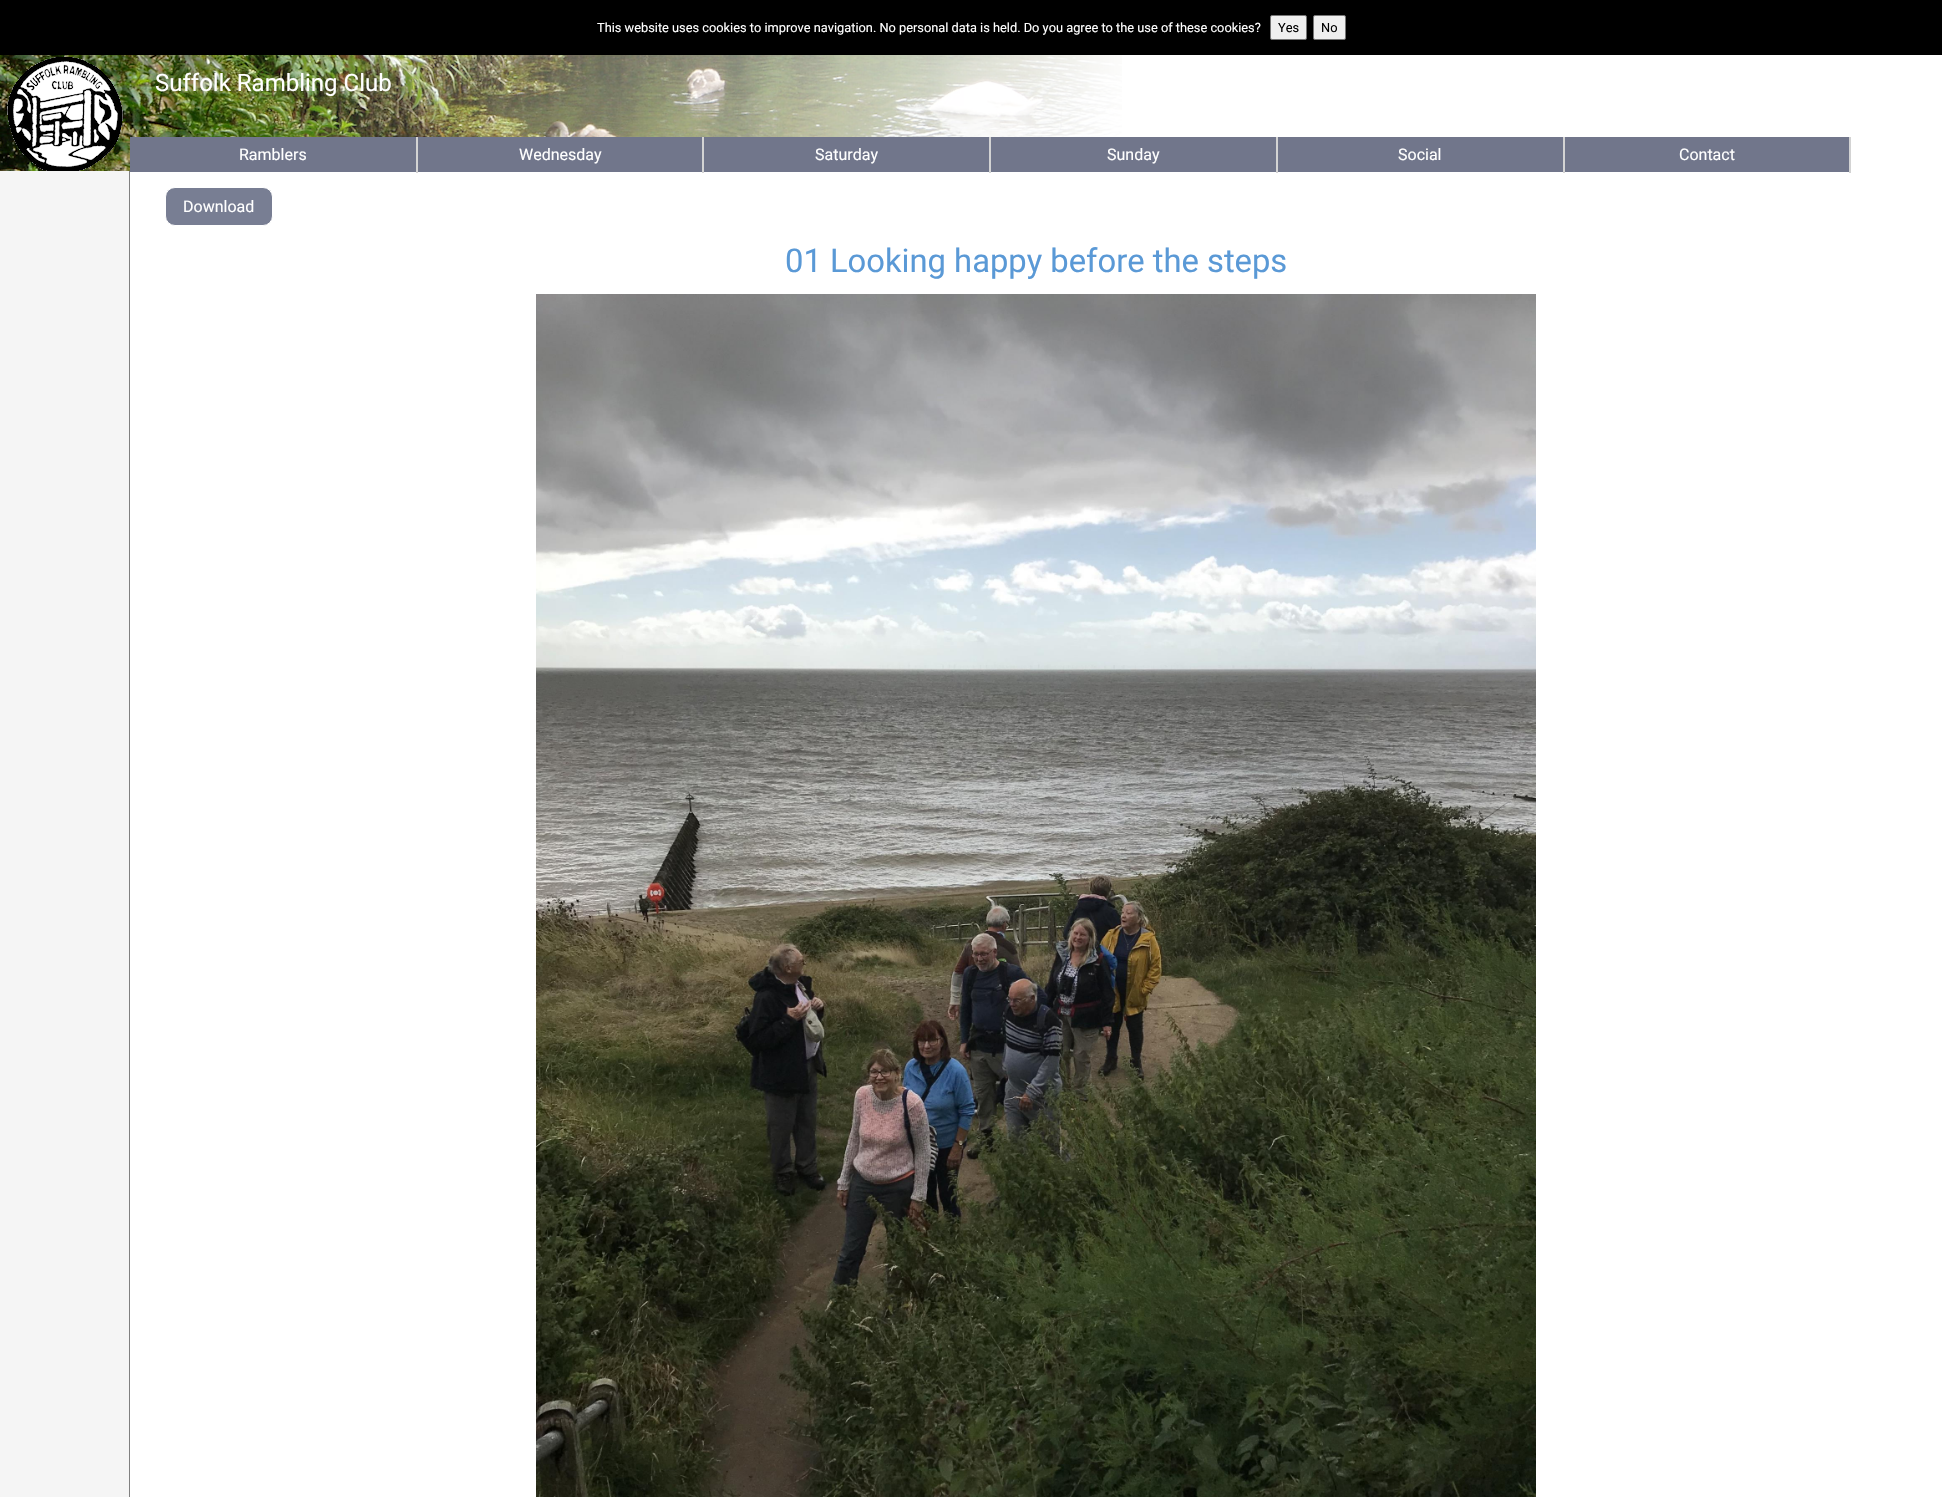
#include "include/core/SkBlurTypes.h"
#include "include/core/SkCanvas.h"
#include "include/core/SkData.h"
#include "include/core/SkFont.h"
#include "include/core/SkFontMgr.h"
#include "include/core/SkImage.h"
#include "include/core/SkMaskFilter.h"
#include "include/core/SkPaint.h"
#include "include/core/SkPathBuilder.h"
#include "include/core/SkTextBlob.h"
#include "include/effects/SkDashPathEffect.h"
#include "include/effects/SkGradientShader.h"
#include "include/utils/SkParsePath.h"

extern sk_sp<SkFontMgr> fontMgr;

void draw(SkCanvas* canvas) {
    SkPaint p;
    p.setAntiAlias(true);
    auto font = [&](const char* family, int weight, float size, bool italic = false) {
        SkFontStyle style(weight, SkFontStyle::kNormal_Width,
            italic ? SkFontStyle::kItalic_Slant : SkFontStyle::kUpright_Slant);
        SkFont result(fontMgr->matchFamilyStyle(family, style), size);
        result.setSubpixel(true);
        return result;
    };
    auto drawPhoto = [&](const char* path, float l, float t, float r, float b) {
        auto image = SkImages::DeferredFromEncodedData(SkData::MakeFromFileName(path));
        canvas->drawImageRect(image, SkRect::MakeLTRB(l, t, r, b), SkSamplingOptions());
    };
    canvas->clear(0xFFFFFFFF);
    p.setColor(0xFF000000);
    canvas->drawRect(SkRect::MakeLTRB(0, 0, 1942, 55), p);
    auto font1 = font("Roboto", 400, 12.8f);
    p.setColor(0xFFFFFFFF);
    canvas->drawString("This website uses cookies to improve navigation. No personal data is held. Do you agree to the use of these cookies?", 597, 32, font1, p);
    p.setColor(0xFFEFEFEF);
    canvas->drawRoundRect(SkRect::MakeLTRB(1270.5f, 15.5f, 1306.5f, 39.5f), 1.5f, 1.5f, p);
    p.setStyle(SkPaint::kStroke_Style);
    p.setStrokeWidth(1);
    p.setColor(0xFF767676);
    canvas->drawRoundRect(SkRect::MakeLTRB(1270.5f, 15.5f, 1306.5f, 39.5f), 1.5f, 1.5f, p);
    p.setStyle(SkPaint::kFill_Style);
    p.setColor(0xFF000000);
    canvas->drawString("Yes", 1278, 32, font1, p);
    p.setColor(0xFFEFEFEF);
    canvas->drawRoundRect(SkRect::MakeLTRB(1313.5f, 15.5f, 1345.5f, 39.5f), 1.5f, 1.5f, p);
    p.setStyle(SkPaint::kStroke_Style);
    p.setColor(0xFF767676);
    canvas->drawRoundRect(SkRect::MakeLTRB(1313.5f, 15.5f, 1345.5f, 39.5f), 1.5f, 1.5f, p);
    p.setStyle(SkPaint::kFill_Style);
    p.setColor(0xFF000000);
    canvas->drawString("No", 1321, 32, font1, p);
    drawPhoto("media/1.png", 0, 55, 1122, 171);
    drawPhoto("media/2.png", 7, 56, 123, 171);
    auto font2 = font("Roboto", 400, 24);
    p.setColor(0xFFFFFFFF);
    canvas->drawString("Suffolk Rambling Club", 155, 91, font2, p);
    {
        const struct { float l, t, r, b; SkColor color; } items[] = {
            {130, 138, 416, 172, 0xFF71768B},
            {130, 137, 1851, 138, 0xFF71768B},
            {416, 137, 418, 173, 0xFFD3D3D3},
        };
        for (auto [l, t, r, b, color] : items) {
            p.setColor(color);
            canvas->drawRect(SkRect::MakeLTRB(l, t, r, b), p);
        }
    }
    auto font3 = font("Roboto", 400, 16);
    p.setColor(0xFFFFFFFF);
    canvas->drawString("Ramblers", 239, 160, font3, p);
    p.setColor(0xFF71768B);
    canvas->drawRect(SkRect::MakeLTRB(418, 138, 702, 172), p);
    p.setColor(0xFFD3D3D3);
    canvas->drawRect(SkRect::MakeLTRB(702, 137, 704, 173), p);
    p.setColor(0xFFFFFFFF);
    canvas->drawString("Wednesday", 519, 160, font3, p);
    p.setColor(0xFF71768B);
    canvas->drawRect(SkRect::MakeLTRB(704, 138, 989, 172), p);
    p.setColor(0xFFD3D3D3);
    canvas->drawRect(SkRect::MakeLTRB(989, 137, 991, 173), p);
    p.setColor(0xFFFFFFFF);
    canvas->drawString("Saturday", 815, 160, font3, p);
    p.setColor(0xFF71768B);
    canvas->drawRect(SkRect::MakeLTRB(991, 138, 1276, 172), p);
    p.setColor(0xFFD3D3D3);
    canvas->drawRect(SkRect::MakeLTRB(1276, 137, 1278, 173), p);
    p.setColor(0xFFFFFFFF);
    canvas->drawString("Sunday", 1107, 160, font3, p);
    p.setColor(0xFF71768B);
    canvas->drawRect(SkRect::MakeLTRB(1278, 138, 1563, 172), p);
    p.setColor(0xFFD3D3D3);
    canvas->drawRect(SkRect::MakeLTRB(1563, 137, 1565, 173), p);
    p.setColor(0xFFFFFFFF);
    canvas->drawString("Social", 1398, 160, font3, p);
    p.setColor(0xFF71768B);
    canvas->drawRect(SkRect::MakeLTRB(1565, 138, 1849, 172), p);
    p.setColor(0xFFD3D3D3);
    canvas->drawRect(SkRect::MakeLTRB(1849, 137, 1851, 173), p);
    p.setColor(0xFFFFFFFF);
    canvas->drawString("Contact", 1679, 160, font3, p);
    p.setColor(0xFFF5F5F5);
    canvas->drawRect(SkRect::MakeLTRB(0, 171, 129, 1497), p);
    p.setColor(0xFF808080);
    canvas->drawRect(SkRect::MakeLTRB(129, 171, 130, 1497), p);
    p.setColor(0xFF787E93);
    canvas->drawRoundRect(SkRect::MakeLTRB(165.5f, 187.5f, 272.5f, 225.5f), 9.5f, 9.5f, p);
    p.setStyle(SkPaint::kStroke_Style);
    p.setColor(0xFFFFFFFF);
    canvas->drawRoundRect(SkRect::MakeLTRB(165.5f, 187.5f, 272.5f, 225.5f), 9.5f, 9.5f, p);
    p.setStyle(SkPaint::kFill_Style);
    canvas->drawString("Download", 183, 212, font3, p);
    auto font4 = font("Roboto", 400, 32.75f);
    p.setColor(0xFF5A99D6);
    canvas->drawString("01 Looking happy before the steps", 785, 272, font4, p);
    drawPhoto("media/3.png", 536, 294, 1536, 1497);
}
